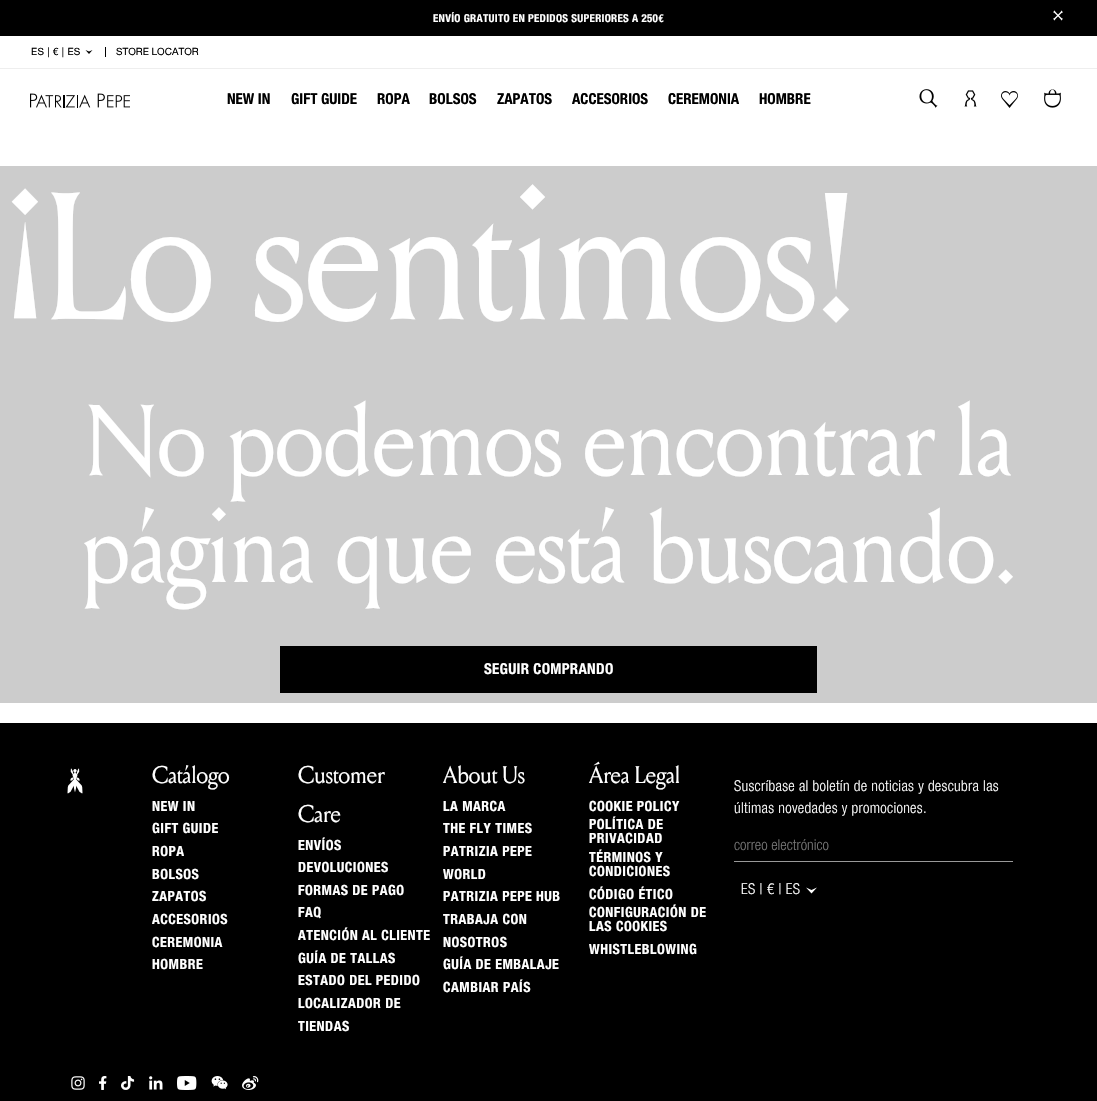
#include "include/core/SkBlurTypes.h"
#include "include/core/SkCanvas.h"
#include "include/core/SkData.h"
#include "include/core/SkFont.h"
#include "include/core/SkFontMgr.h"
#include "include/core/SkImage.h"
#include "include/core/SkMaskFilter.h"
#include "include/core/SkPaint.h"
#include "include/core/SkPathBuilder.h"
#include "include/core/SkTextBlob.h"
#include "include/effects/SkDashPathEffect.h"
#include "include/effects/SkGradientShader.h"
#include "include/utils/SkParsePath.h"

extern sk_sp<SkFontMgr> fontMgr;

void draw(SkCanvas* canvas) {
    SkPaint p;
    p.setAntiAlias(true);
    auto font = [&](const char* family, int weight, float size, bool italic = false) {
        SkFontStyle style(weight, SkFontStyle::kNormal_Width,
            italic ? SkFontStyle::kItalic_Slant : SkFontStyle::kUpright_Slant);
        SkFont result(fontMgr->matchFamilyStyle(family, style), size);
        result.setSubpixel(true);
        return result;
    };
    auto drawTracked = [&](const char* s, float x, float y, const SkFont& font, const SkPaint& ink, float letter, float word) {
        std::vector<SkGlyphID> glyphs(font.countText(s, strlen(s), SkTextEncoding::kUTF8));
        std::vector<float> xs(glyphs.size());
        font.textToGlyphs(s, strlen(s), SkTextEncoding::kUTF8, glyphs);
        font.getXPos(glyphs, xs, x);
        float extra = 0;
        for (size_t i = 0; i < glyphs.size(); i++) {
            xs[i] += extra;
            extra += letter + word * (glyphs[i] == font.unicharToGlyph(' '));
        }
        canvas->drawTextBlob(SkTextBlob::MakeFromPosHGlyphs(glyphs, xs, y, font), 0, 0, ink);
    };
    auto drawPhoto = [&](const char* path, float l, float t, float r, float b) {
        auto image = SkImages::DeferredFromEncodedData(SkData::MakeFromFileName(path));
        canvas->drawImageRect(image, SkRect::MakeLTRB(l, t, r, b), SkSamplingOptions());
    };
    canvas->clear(0xFFFFFFFF);
    p.setColor(0xFF000000);
    canvas->drawRect(SkRect::MakeLTRB(0, 0, 1097, 36), p);
    auto font1 = font("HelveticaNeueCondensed", 400, 11);
    p.setColor(0xFFFFFFFF);
    drawTracked("ENVÍO GRATUITO EN PEDIDOS SUPERIORES A 250€", 433, 22, font1, p, 0.3f, 0);
    drawPhoto("media/1.png", 1053, 10, 1063, 21);
    p.setColor(0xFFEEEEEE);
    canvas->drawRect(SkRect::MakeLTRB(0, 68, 1097, 69), p);
    auto font2 = font("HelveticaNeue", 400, 10);
    p.setColor(0xFF000000);
    drawTracked("ES | € | ES", 31, 55, font2, p, 0.3f, 0);
    canvas->drawPath(SkPathBuilder().moveTo(85.5f, 50).lineTo(89, 54).lineTo(92.5f, 50).lineTo(89, 51.5f).close().detach(), p);
    canvas->drawRect(SkRect::MakeLTRB(105, 47, 106, 57), p);
    canvas->drawString("STORE LOCATOR", 116, 55, font2, p);
    drawPhoto("media/2.png", 30, 93, 130, 108);
    auto font3 = font("HelveticaNeueCondensed", 400, 15);
    {
        const struct { const char* s; float x, y; } items[] = {
            {"NEW IN", 227, 104},
            {"GIFT GUIDE", 291, 104},
            {"ROPA", 377, 104},
            {"BOLSOS", 429, 104},
            {"ZAPATOS", 497, 104},
            {"ACCESORIOS", 572, 104},
            {"CEREMONIA", 668, 104},
            {"HOMBRE", 759, 104},
        };
        for (auto [s, x, y] : items) {
            canvas->drawString(s, x, y, font3, p);
        }
    }
    drawPhoto("media/3.png", 919, 89, 938, 108);
    drawPhoto("media/4.png", 964, 90, 977, 107);
    drawPhoto("media/5.png", 1001, 91, 1018, 108);
    drawPhoto("media/6.png", 1044, 89, 1061, 108);
    p.setColor(0xFFCCCCCC);
    canvas->drawRect(SkRect::MakeLTRB(0, 166, 1097, 703), p);
    auto font4 = font("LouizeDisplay", 400, 180);
    p.setColor(0xFFFFFFFF);
    canvas->drawString("¡Lo sentimos!", 6, 319, font4, p);
    auto font5 = font("LouizeDisplay", 400, 100);
    canvas->drawString("No podemos encontrar la", 85, 475, font5, p);
    canvas->drawString("página que está buscando.", 81, 582, font5, p);
    p.setColor(0xFF000000);
    canvas->drawRect(SkRect::MakeLTRB(280, 646, 817, 693), p);
    p.setColor(0xFFFFFFFF);
    drawTracked("SEGUIR COMPRANDO", 484, 674, font3, p, 0.3f, 0);
    p.setColor(0xFF000000);
    canvas->drawRect(SkRect::MakeLTRB(0, 723, 1097, 1101), p);
    drawPhoto("media/7.png", 67, 768, 83, 794);
    auto font6 = font("LouizeDisplay", 400, 24);
    p.setColor(0xFFFFFFFF);
    canvas->drawString("Catálogo", 152, 783, font6, p);
    auto font7 = font("HelveticaNeueCondensed", 400, 14);
    {
        const struct { const char* s; float x, y; } items[] = {
            {"NEW IN", 152, 811},
            {"GIFT GUIDE", 152, 833},
            {"ROPA", 152, 856},
            {"BOLSOS", 152, 879},
            {"ZAPATOS", 152, 901},
            {"ACCESORIOS", 152, 924},
            {"CEREMONIA", 152, 947},
            {"HOMBRE", 152, 969},
        };
        for (auto [s, x, y] : items) {
            drawTracked(s, x, y, font7, p, 0.5f, 0);
        }
    }
    canvas->drawString("Customer", 298, 783, font6, p);
    canvas->drawString("Care", 298, 822, font6, p);
    {
        const struct { const char* s; float x, y; } items[] = {
            {"ENVÍOS", 298, 850},
            {"DEVOLUCIONES", 298, 872},
            {"FORMAS DE PAGO", 298, 895},
            {"FAQ", 298, 917},
            {"ATENCIÓN AL CLIENTE", 298, 940},
            {"GUÍA DE TALLAS", 298, 963},
            {"ESTADO DEL PEDIDO", 298, 985},
            {"LOCALIZADOR DE", 298, 1008},
            {"TIENDAS", 298, 1031},
        };
        for (auto [s, x, y] : items) {
            drawTracked(s, x, y, font7, p, 0.5f, 0);
        }
    }
    canvas->drawString("About Us", 443, 783, font6, p);
    {
        const struct { const char* s; float x, y; } items[] = {
            {"LA MARCA", 443, 811},
            {"THE FLY TIMES", 443, 833},
            {"PATRIZIA PEPE", 443, 856},
            {"WORLD", 443, 879},
            {"PATRIZIA PEPE HUB", 443, 901},
            {"TRABAJA CON", 443, 924},
            {"NOSOTROS", 443, 947},
            {"GUÍA DE EMBALAJE", 443, 969},
            {"CAMBIAR PAÍS", 443, 992},
        };
        for (auto [s, x, y] : items) {
            drawTracked(s, x, y, font7, p, 0.5f, 0);
        }
    }
    canvas->drawString("Área Legal", 589, 783, font6, p);
    {
        const struct { const char* s; float x, y; } items[] = {
            {"COOKIE POLICY", 589, 811},
            {"POLÍTICA DE", 589, 829},
            {"PRIVACIDAD", 589, 843},
            {"TÉRMINOS Y", 589, 862},
            {"CONDICIONES", 589, 876},
            {"CÓDIGO ÉTICO", 589, 899},
            {"CONFIGURACIÓN DE", 589, 917},
            {"LAS COOKIES", 589, 931},
            {"WHISTLEBLOWING", 589, 954},
        };
        for (auto [s, x, y] : items) {
            drawTracked(s, x, y, font7, p, 0.5f, 0);
        }
    }
    auto font8 = font("Helvetica Neue", 300, 15);
    drawTracked("Suscríbase al boletín de noticias y descubra las", 734, 791, font8, p, 0.3f, 0);
    drawTracked("últimas novedades y promociones.", 734, 813, font8, p, 0.3f, 0);
    p.setColor(0xFF999999);
    canvas->drawRect(SkRect::MakeLTRB(734, 861, 1013, 862), p);
    p.setColor(0xFF757575);
    canvas->drawString("correo electrónico", 734, 850, font8, p);
    p.setColor(0xFFFFFFFF);
    drawTracked("ES | € | ES", 741, 894, font8, p, 0.3f, 0);
    canvas->drawPath(SkPathBuilder().moveTo(806, 887.5f).lineTo(811.5f, 893.5f).lineTo(817, 887.5f).lineTo(811.5f, 890).close().detach(), p);
    drawPhoto("media/8.png", 71, 1076, 85, 1090);
    drawPhoto("media/9.png", 99, 1076, 107, 1090);
    drawPhoto("media/10.png", 121, 1076, 135, 1090);
    drawPhoto("media/11.png", 149, 1076, 163, 1090);
    drawPhoto("media/12.png", 177, 1076, 197, 1090);
    drawPhoto("media/13.png", 211, 1076, 228, 1090);
    drawPhoto("media/14.png", 242, 1076, 259, 1090);
}
